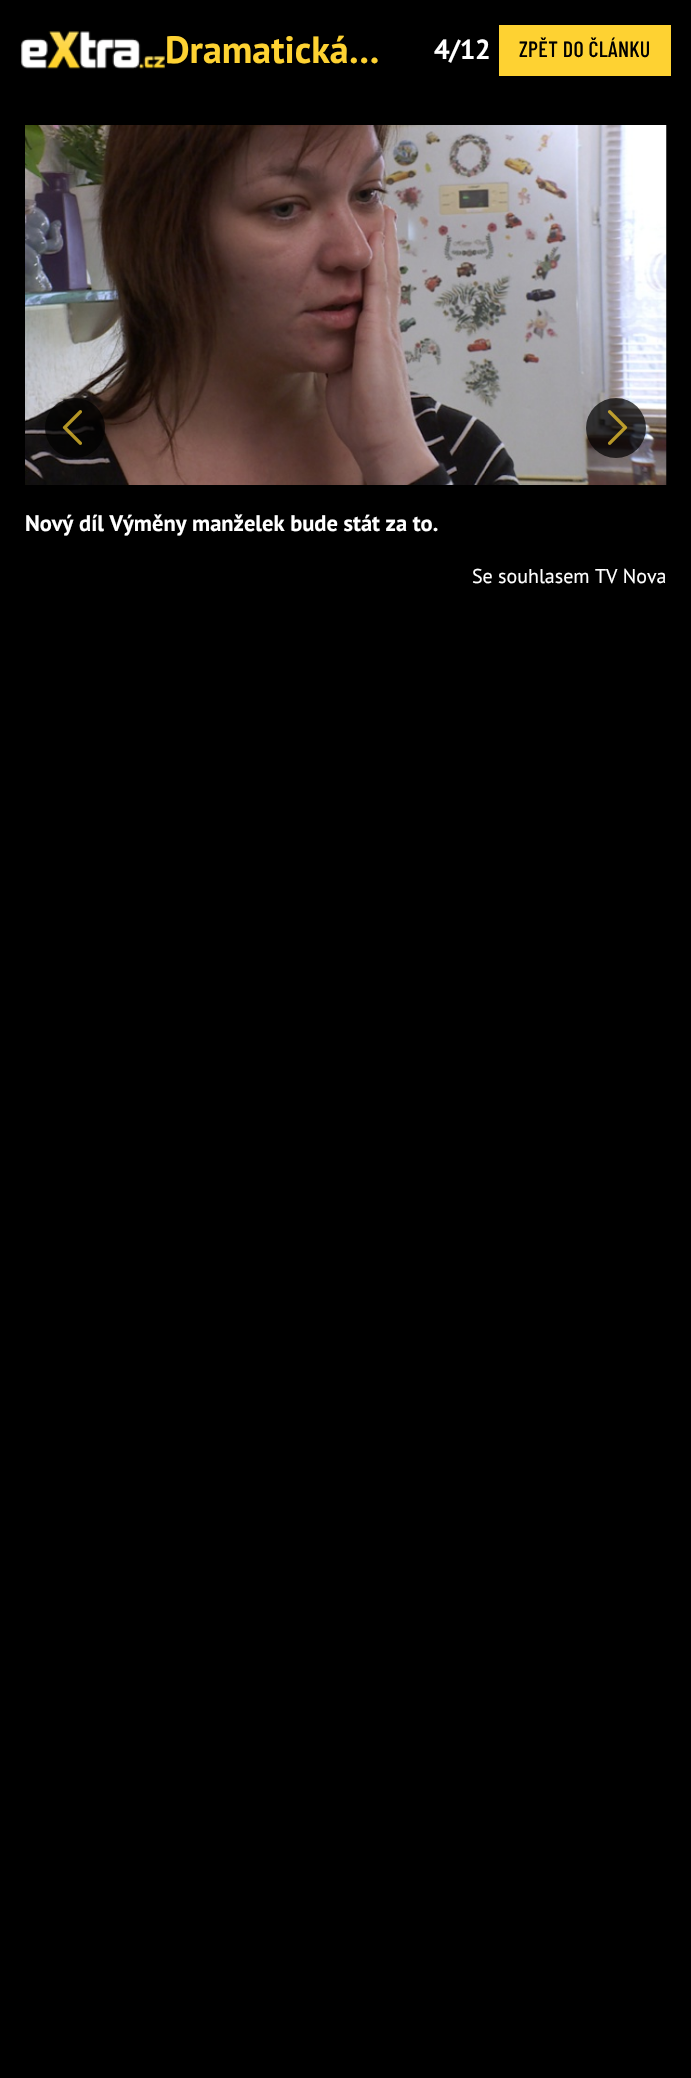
#include "include/core/SkBlurTypes.h"
#include "include/core/SkCanvas.h"
#include "include/core/SkData.h"
#include "include/core/SkFont.h"
#include "include/core/SkFontMgr.h"
#include "include/core/SkImage.h"
#include "include/core/SkMaskFilter.h"
#include "include/core/SkPaint.h"
#include "include/core/SkPathBuilder.h"
#include "include/core/SkTextBlob.h"
#include "include/effects/SkDashPathEffect.h"
#include "include/effects/SkGradientShader.h"
#include "include/utils/SkParsePath.h"

extern sk_sp<SkFontMgr> fontMgr;

void draw(SkCanvas* canvas) {
    SkPaint p;
    p.setAntiAlias(true);
    auto font = [&](const char* family, int weight, float size, bool italic = false) {
        SkFontStyle style(weight, SkFontStyle::kNormal_Width,
            italic ? SkFontStyle::kItalic_Slant : SkFontStyle::kUpright_Slant);
        SkFont result(fontMgr->matchFamilyStyle(family, style), size);
        result.setSubpixel(true);
        return result;
    };
    auto drawTracked = [&](const char* s, float x, float y, const SkFont& font, const SkPaint& ink, float letter, float word) {
        std::vector<SkGlyphID> glyphs(font.countText(s, strlen(s), SkTextEncoding::kUTF8));
        std::vector<float> xs(glyphs.size());
        font.textToGlyphs(s, strlen(s), SkTextEncoding::kUTF8, glyphs);
        font.getXPos(glyphs, xs, x);
        float extra = 0;
        for (size_t i = 0; i < glyphs.size(); i++) {
            xs[i] += extra;
            extra += letter + word * (glyphs[i] == font.unicharToGlyph(' '));
        }
        canvas->drawTextBlob(SkTextBlob::MakeFromPosHGlyphs(glyphs, xs, y, font), 0, 0, ink);
    };
    auto drawPhoto = [&](const char* path, float l, float t, float r, float b) {
        auto image = SkImages::DeferredFromEncodedData(SkData::MakeFromFileName(path));
        canvas->drawImageRect(image, SkRect::MakeLTRB(l, t, r, b), SkSamplingOptions());
    };
    canvas->clear(0xFF000000);
    drawPhoto("media/1.png", 20, 31, 165, 69);
    auto font1 = font("PT Sans", 700, 38);
    p.setColor(0xFFFED232);
    canvas->drawString("Dramatická…", 165, 63, font1, p);
    auto font2 = font("PT Sans", 700, 27.5f);
    p.setColor(0xFFFFFFFF);
    drawTracked("4/12", 434, 59, font2, p, -0.5f, 0);
    p.setColor(0xFFFED232);
    canvas->drawRect(SkRect::MakeLTRB(499, 25, 671, 76), p);
    auto font3 = font("Barlow Condensed", 500, 22);
    p.setColor(0xFF000000);
    drawTracked("ZPĚT DO ČLÁNKU", 519, 57, font3, p, 0.3f, 0);
    drawPhoto("media/2.png", 25, 125, 667, 485);
    p.setColor(0xB3000000);
    canvas->drawCircle(75, 428, 30, p);
    drawPhoto("media/3.png", 62, 410, 82, 445);
    canvas->drawCircle(616, 428, 30, p);
    drawPhoto("media/4.png", 607, 410, 628, 445);
    auto font4 = font("PT Sans", 700, 22.5f);
    p.setColor(0xFFFFFFFF);
    canvas->drawString("Nový díl Výměny manželek bude stát za to.", 25, 531, font4, p);
    auto font5 = font("PT Sans", 400, 20);
    canvas->drawString("Se souhlasem TV Nova", 472, 583, font5, p);
}
